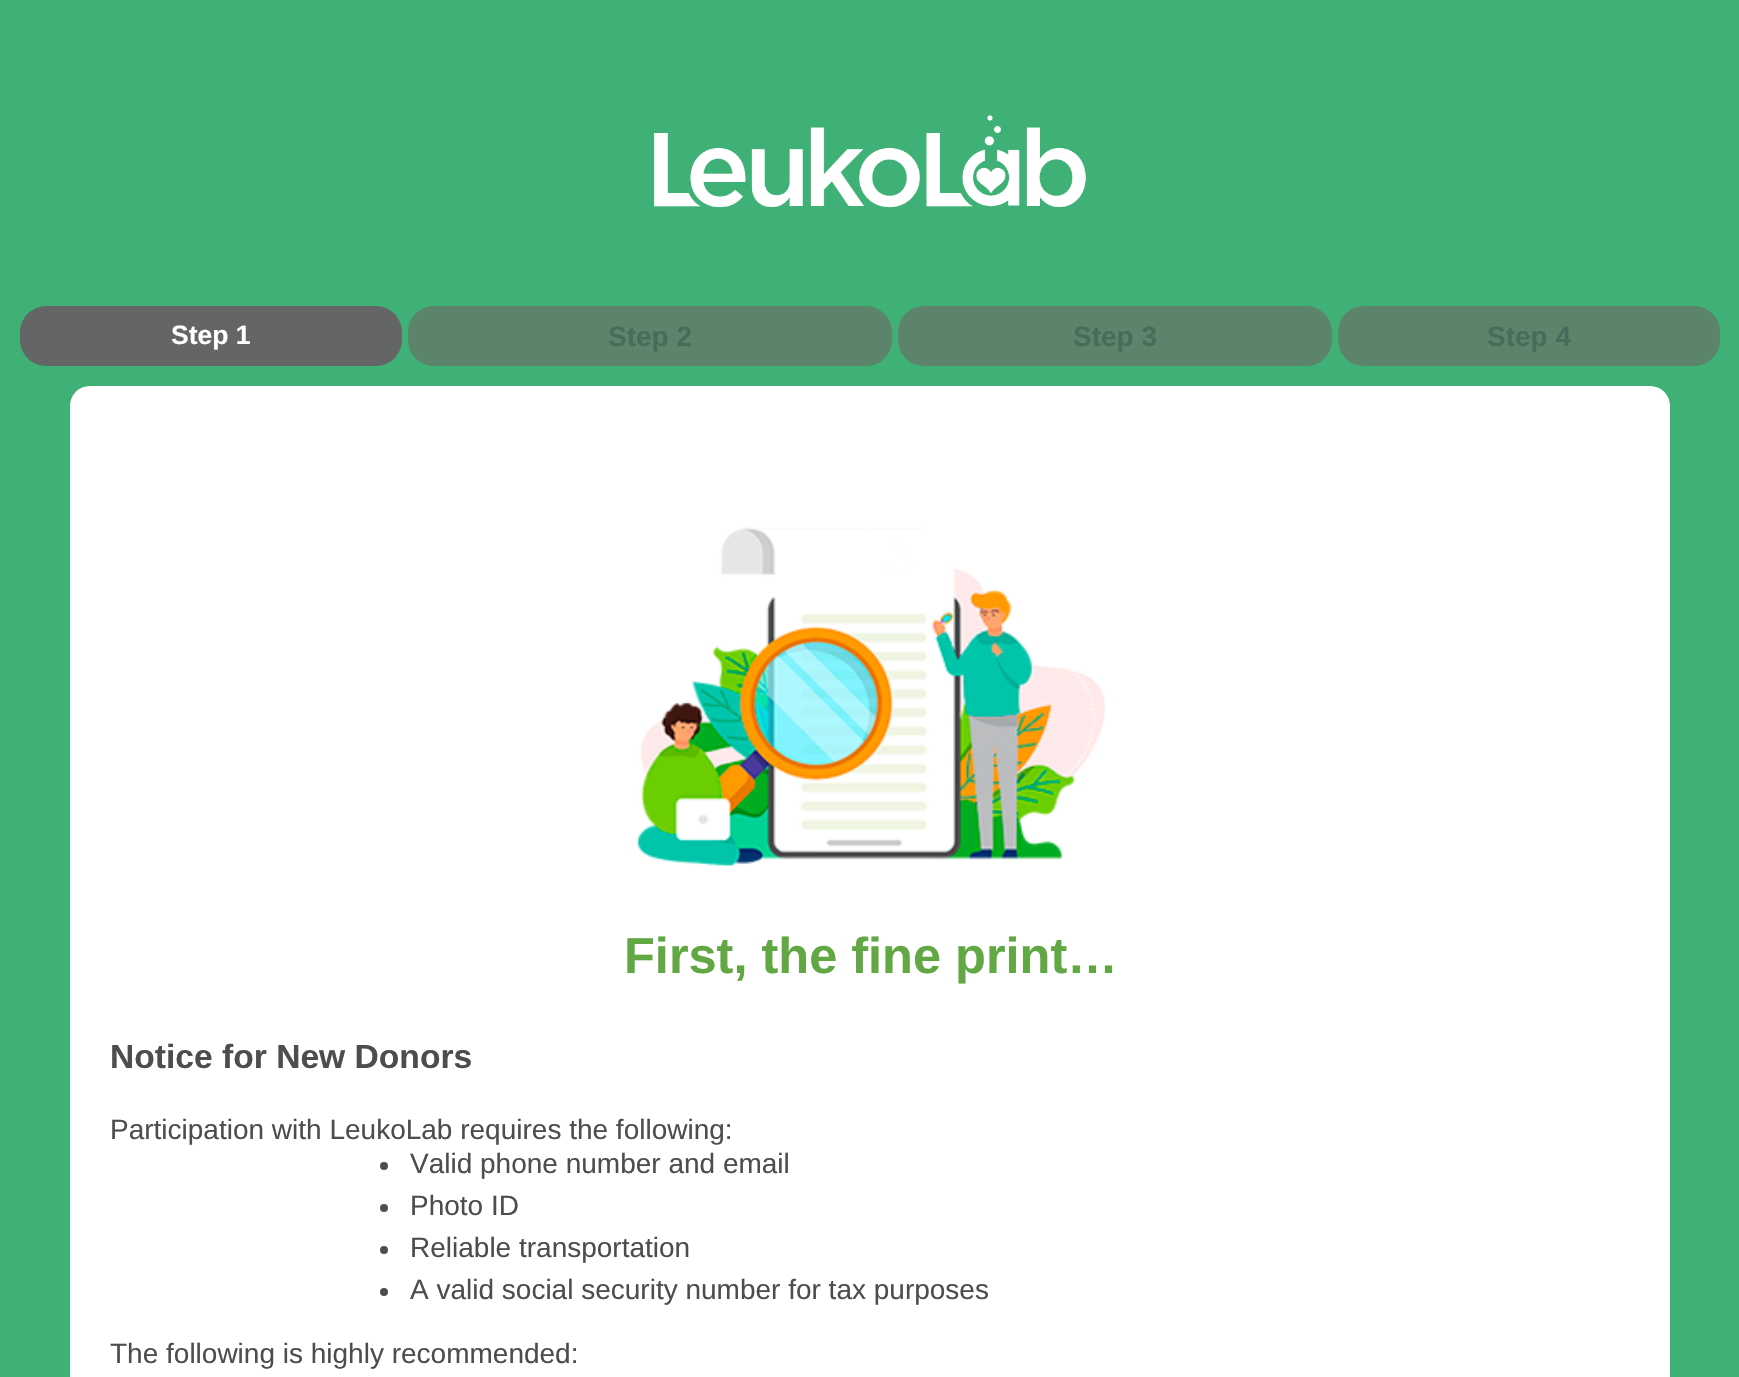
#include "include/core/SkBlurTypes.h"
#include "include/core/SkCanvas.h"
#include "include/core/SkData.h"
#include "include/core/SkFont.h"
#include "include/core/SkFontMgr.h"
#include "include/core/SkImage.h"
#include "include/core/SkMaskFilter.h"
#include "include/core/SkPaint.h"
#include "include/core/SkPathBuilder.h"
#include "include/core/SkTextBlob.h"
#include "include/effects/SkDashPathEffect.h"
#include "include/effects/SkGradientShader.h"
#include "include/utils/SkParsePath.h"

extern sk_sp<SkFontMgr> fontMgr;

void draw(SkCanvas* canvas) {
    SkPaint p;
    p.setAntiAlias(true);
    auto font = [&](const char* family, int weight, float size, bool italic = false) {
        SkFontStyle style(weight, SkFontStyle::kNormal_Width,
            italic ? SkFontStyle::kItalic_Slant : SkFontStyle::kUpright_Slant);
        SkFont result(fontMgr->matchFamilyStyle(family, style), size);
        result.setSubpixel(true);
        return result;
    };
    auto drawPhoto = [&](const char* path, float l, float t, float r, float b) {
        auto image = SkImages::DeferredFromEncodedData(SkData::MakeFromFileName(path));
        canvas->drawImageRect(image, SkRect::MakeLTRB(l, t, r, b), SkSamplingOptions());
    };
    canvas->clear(0xFF3FB176);
    drawPhoto("media/1.png", 653, 115, 1086, 208);
    p.setColor(0xFF646565);
    canvas->drawRoundRect(SkRect::MakeLTRB(20, 306, 402, 366), 26, 26, p);
    auto font1 = font("Liberation Sans", 700, 26.5f);
    p.setColor(0xFFFFFFFF);
    canvas->drawString("Step 1", 171, 344, font1, p);
    p.setColor(0xFF5B846A);
    canvas->drawRoundRect(SkRect::MakeLTRB(408, 306, 892, 366), 26, 26, p);
    auto font2 = font("Liberation Sans", 700, 28);
    p.setColor(0xFF496B59);
    canvas->drawString("Step 2", 608, 346, font2, p);
    p.setColor(0xFF5B846A);
    canvas->drawRoundRect(SkRect::MakeLTRB(898, 306, 1332, 366), 26, 26, p);
    p.setColor(0xFF496B59);
    canvas->drawString("Step 3", 1073, 346, font2, p);
    p.setColor(0xFF5B846A);
    canvas->drawRoundRect(SkRect::MakeLTRB(1338, 306, 1720, 366), 26, 26, p);
    p.setColor(0xFF496B59);
    canvas->drawString("Step 4", 1487, 346, font2, p);
    p.setColor(0xFFFFFFFF);
    canvas->drawRoundRect(SkRect::MakeLTRB(70, 386, 1670, 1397), 20, 20, p);
    drawPhoto("media/2.png", 636, 527, 1106, 866);
    auto font3 = font("Liberation Sans", 700, 50.5f);
    p.setColor(0xFF61A744);
    canvas->drawString("First, the fine print…", 624, 973, font3, p);
    auto font4 = font("Liberation Sans", 700, 33.6f);
    p.setColor(0xFF4D4D4D);
    canvas->drawString("Notice for New Donors", 110, 1068, font4, p);
    auto font5 = font("Liberation Sans", 400, 28);
    canvas->drawString("Participation with LeukoLab requires the following:", 110, 1139, font5, p);
    canvas->drawCircle(384, 1166, 4, p);
    canvas->drawString("Valid phone number and email", 410, 1173, font5, p);
    canvas->drawCircle(384, 1208, 4, p);
    canvas->drawString("Photo ID", 410, 1215, font5, p);
    canvas->drawCircle(384, 1250, 4, p);
    canvas->drawString("Reliable transportation", 410, 1257, font5, p);
    canvas->drawCircle(384, 1292, 4, p);
    canvas->drawString("A valid social security number for tax purposes", 410, 1299, font5, p);
    canvas->drawString("The following is highly recommended:", 110, 1363, font5, p);
}
